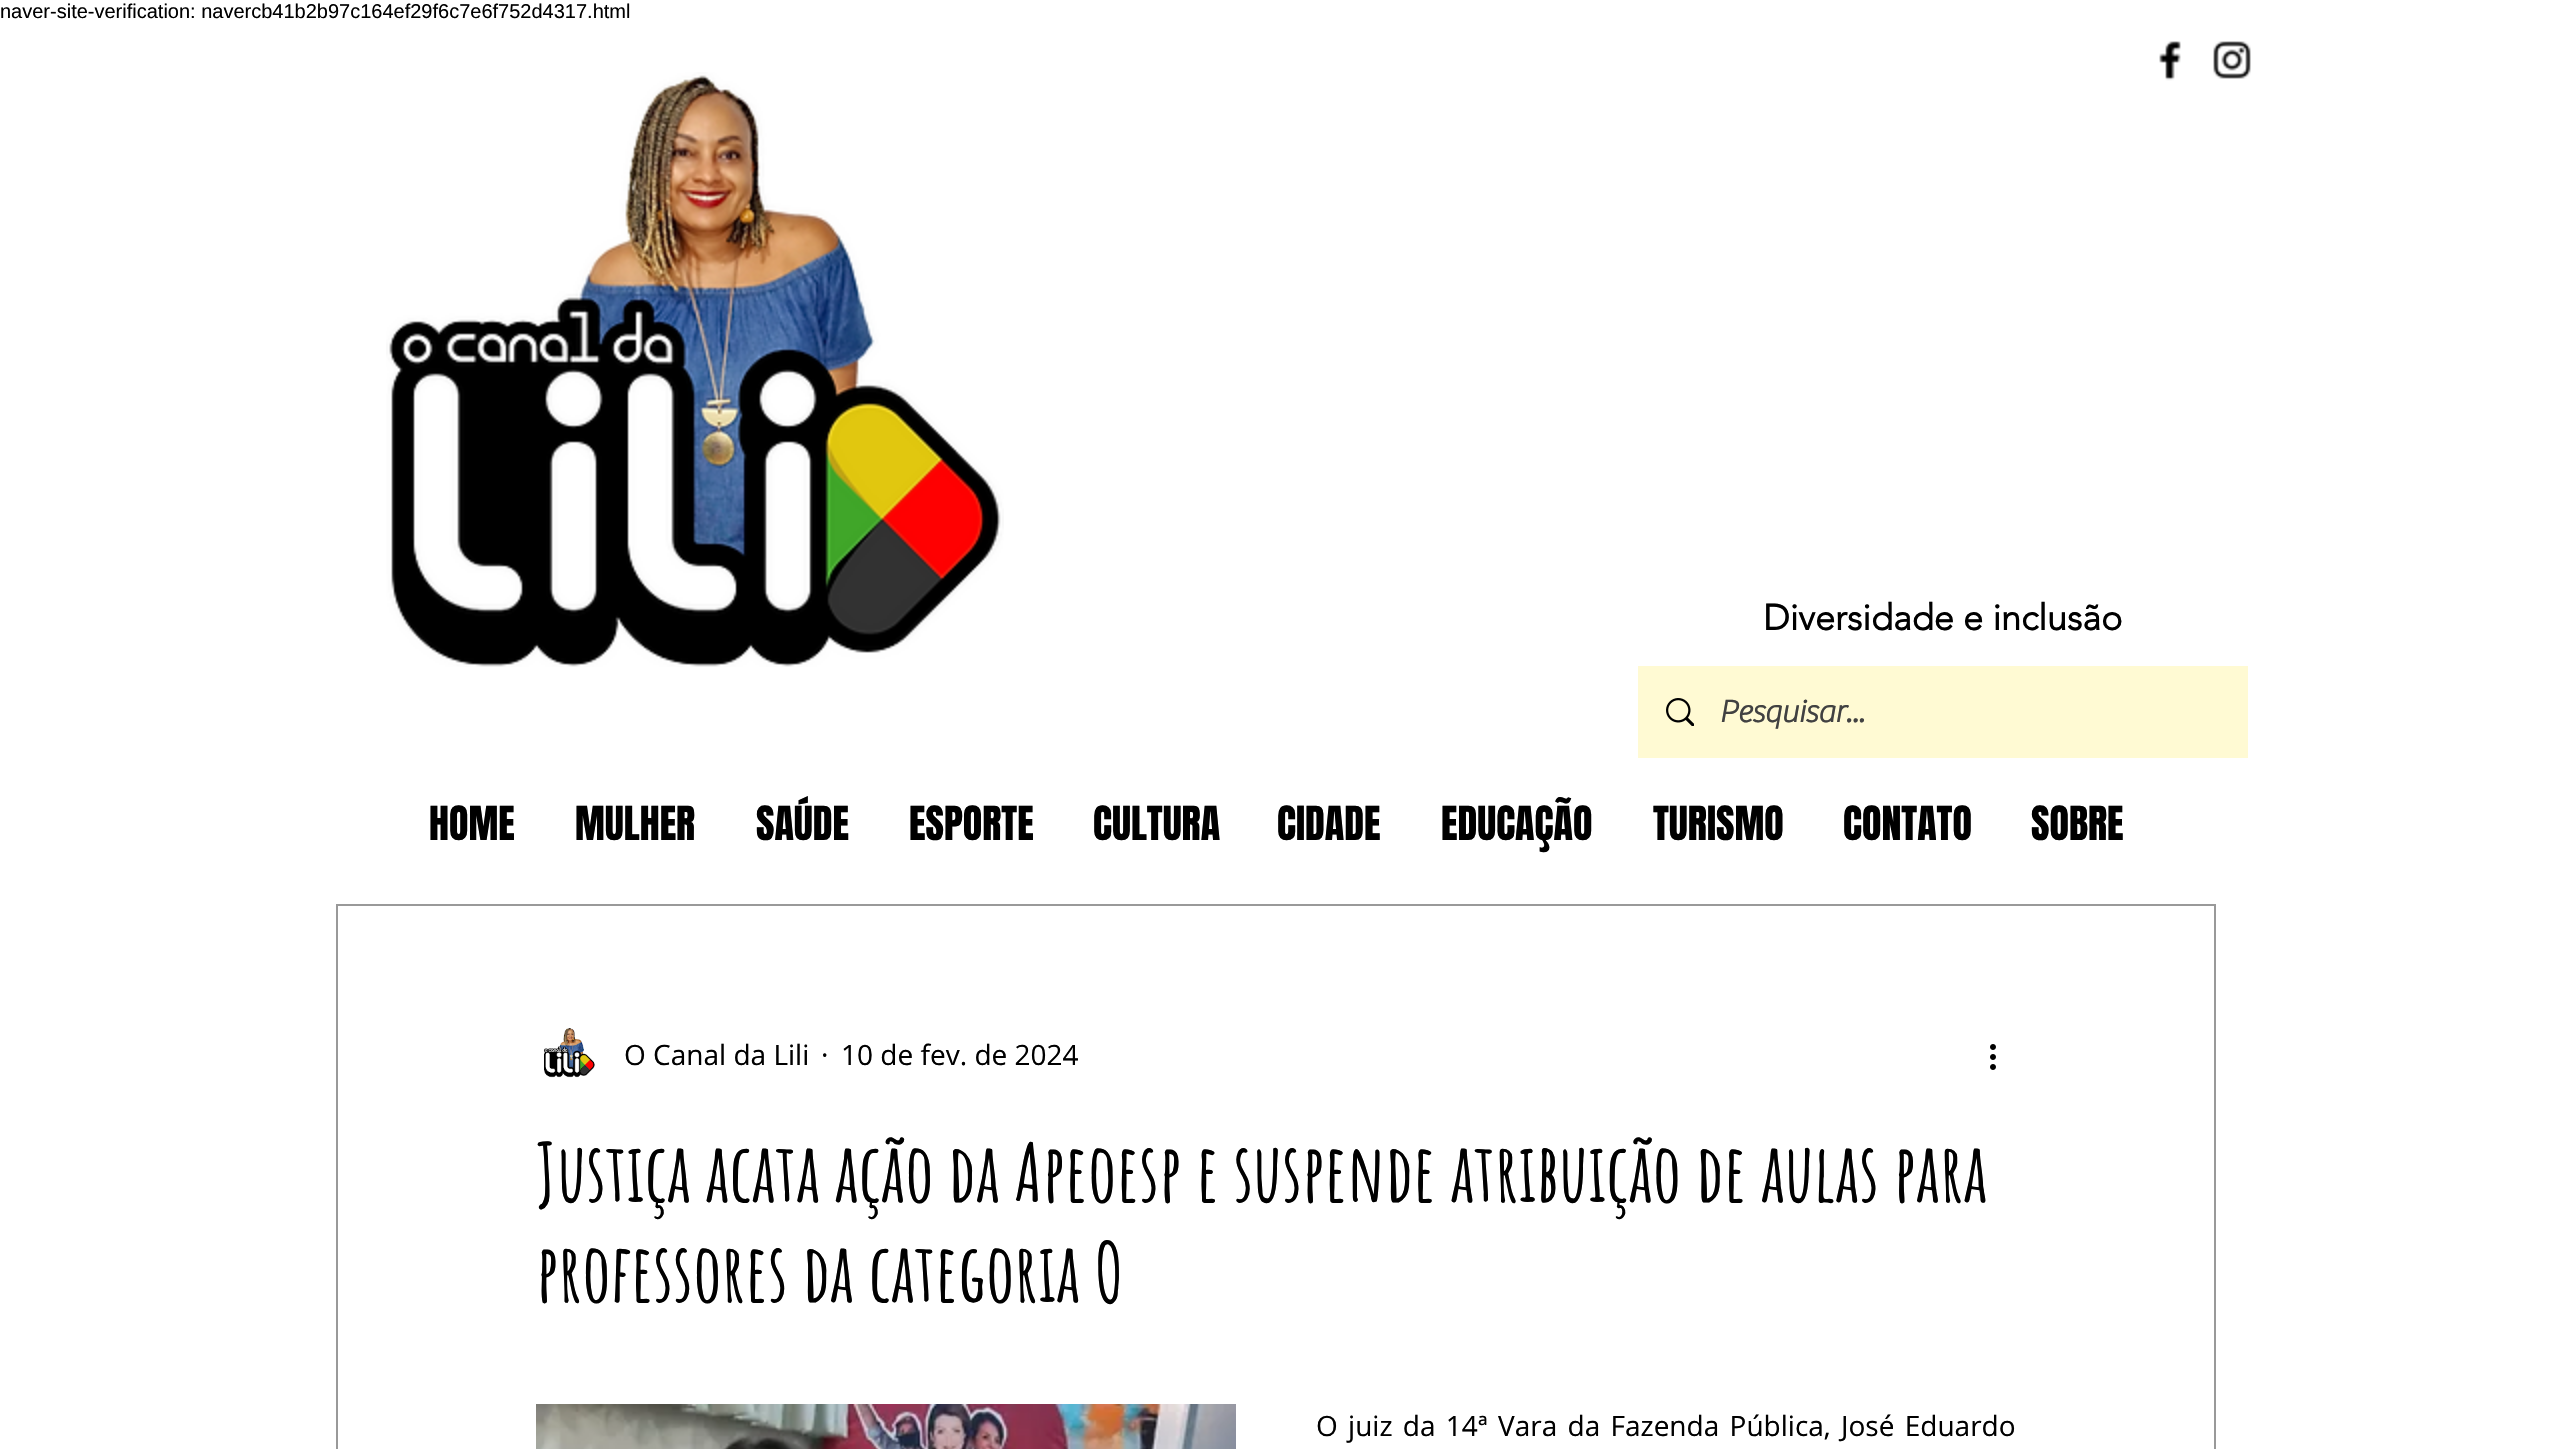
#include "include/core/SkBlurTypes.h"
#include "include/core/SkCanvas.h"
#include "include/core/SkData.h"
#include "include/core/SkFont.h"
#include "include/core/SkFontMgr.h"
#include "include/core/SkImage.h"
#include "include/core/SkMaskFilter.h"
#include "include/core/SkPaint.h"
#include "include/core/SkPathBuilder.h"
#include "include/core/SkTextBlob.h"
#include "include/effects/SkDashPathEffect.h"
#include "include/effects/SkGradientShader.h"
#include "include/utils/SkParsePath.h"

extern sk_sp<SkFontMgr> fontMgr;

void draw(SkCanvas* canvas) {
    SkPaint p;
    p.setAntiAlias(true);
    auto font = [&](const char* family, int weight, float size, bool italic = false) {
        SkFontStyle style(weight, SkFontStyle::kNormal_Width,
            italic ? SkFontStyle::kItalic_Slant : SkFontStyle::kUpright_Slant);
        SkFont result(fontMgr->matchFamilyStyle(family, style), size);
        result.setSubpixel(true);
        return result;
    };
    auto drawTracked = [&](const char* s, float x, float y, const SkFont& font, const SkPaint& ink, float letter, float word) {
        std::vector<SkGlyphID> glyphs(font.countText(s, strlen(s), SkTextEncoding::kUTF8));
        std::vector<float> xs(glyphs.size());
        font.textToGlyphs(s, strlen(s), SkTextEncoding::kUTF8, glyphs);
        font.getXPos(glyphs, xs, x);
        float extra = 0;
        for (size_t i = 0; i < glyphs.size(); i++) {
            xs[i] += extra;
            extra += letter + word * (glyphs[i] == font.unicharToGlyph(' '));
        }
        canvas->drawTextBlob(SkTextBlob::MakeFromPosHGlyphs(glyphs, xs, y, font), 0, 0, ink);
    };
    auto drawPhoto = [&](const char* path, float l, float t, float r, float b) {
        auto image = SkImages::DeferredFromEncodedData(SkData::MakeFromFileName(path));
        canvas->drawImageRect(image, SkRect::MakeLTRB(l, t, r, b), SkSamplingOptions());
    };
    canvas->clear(0xFFFFFFFF);
    auto font1 = font("Liberation Sans", 400, 20);
    p.setColor(0xFF000000);
    canvas->drawString("naver-site-verification: navercb41b2b97c164ef29f6c7e6f752d4317.html", 0, 18, font1, p);
    drawPhoto("media/1.png", 2159, 41, 2181, 81);
    drawPhoto("media/2.png", 2213, 41, 2251, 79);
    drawPhoto("media/3.png", 386, 72, 1004, 667);
    auto font2 = font("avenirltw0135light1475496", 700, 36);
    canvas->drawString("Diversidade e inclusão", 1763, 630, font2, p);
    p.setColor(0xFFFFFAD3);
    canvas->drawRect(SkRect::MakeLTRB(1638, 666, 2248, 758), p);
    drawPhoto("media/4.png", 1666, 698, 1694, 726);
    auto font3 = font("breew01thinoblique", 700, 32);
    p.setColor(0xFF414141);
    canvas->drawString("Pesquisar...", 1719, 722, font3, p);
    auto font4 = font("Anton", 400, 40);
    p.setColor(0xFF000000);
    {
        const struct { const char* s; float x, y; } items[] = {
            {"HOME", 429, 840},
            {"MULHER", 575, 840},
            {"SAÚDE", 756, 840},
            {"ESPORTE", 909, 840},
            {"CULTURA", 1093, 840},
            {"CIDADE", 1277, 840},
            {"EDUCAÇÃO", 1441, 840},
            {"TURISMO", 1653, 840},
            {"CONTATO", 1843, 840},
            {"SOBRE", 2031, 840},
        };
        for (auto [s, x, y] : items) {
            canvas->drawString(s, x, y, font4, p);
        }
    }
    p.setStyle(SkPaint::kStroke_Style);
    p.setStrokeWidth(2);
    p.setColor(0xFF999999);
    canvas->drawRect(SkRect::MakeLTRB(337, 905, 2215, 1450), p);
    drawPhoto("media/5.png", 543, 1028, 595, 1078);
    auto font5 = font("Open Sans", 400, 28);
    p.setStyle(SkPaint::kFill_Style);
    p.setColor(0xFF000000);
    {
        const struct { const char* s; float x, y; } items[] = {
            {"O Canal da Lili", 624, 1065},
            {"·", 821, 1065},
            {"10 de fev. de 2024", 841, 1065},
        };
        for (auto [s, x, y] : items) {
            canvas->drawString(s, x, y, font5, p);
        }
    }
    drawPhoto("media/6.png", 1990, 1044, 1996, 1070);
    auto font6 = font("Amatic SC", 700, 80);
    canvas->drawString("Justiça acata ação da Apeoesp e suspende atribuição de aulas para", 536, 1202, font6, p);
    canvas->drawString("professores da categoria O", 536, 1302, font6, p);
    drawPhoto("media/7.png", 536, 1404, 1236, 1449);
    drawTracked("O juiz da 14ª Vara da Fazenda Pública, José Eduardo", 1316, 1436, font5, p, 0, 3);
}
